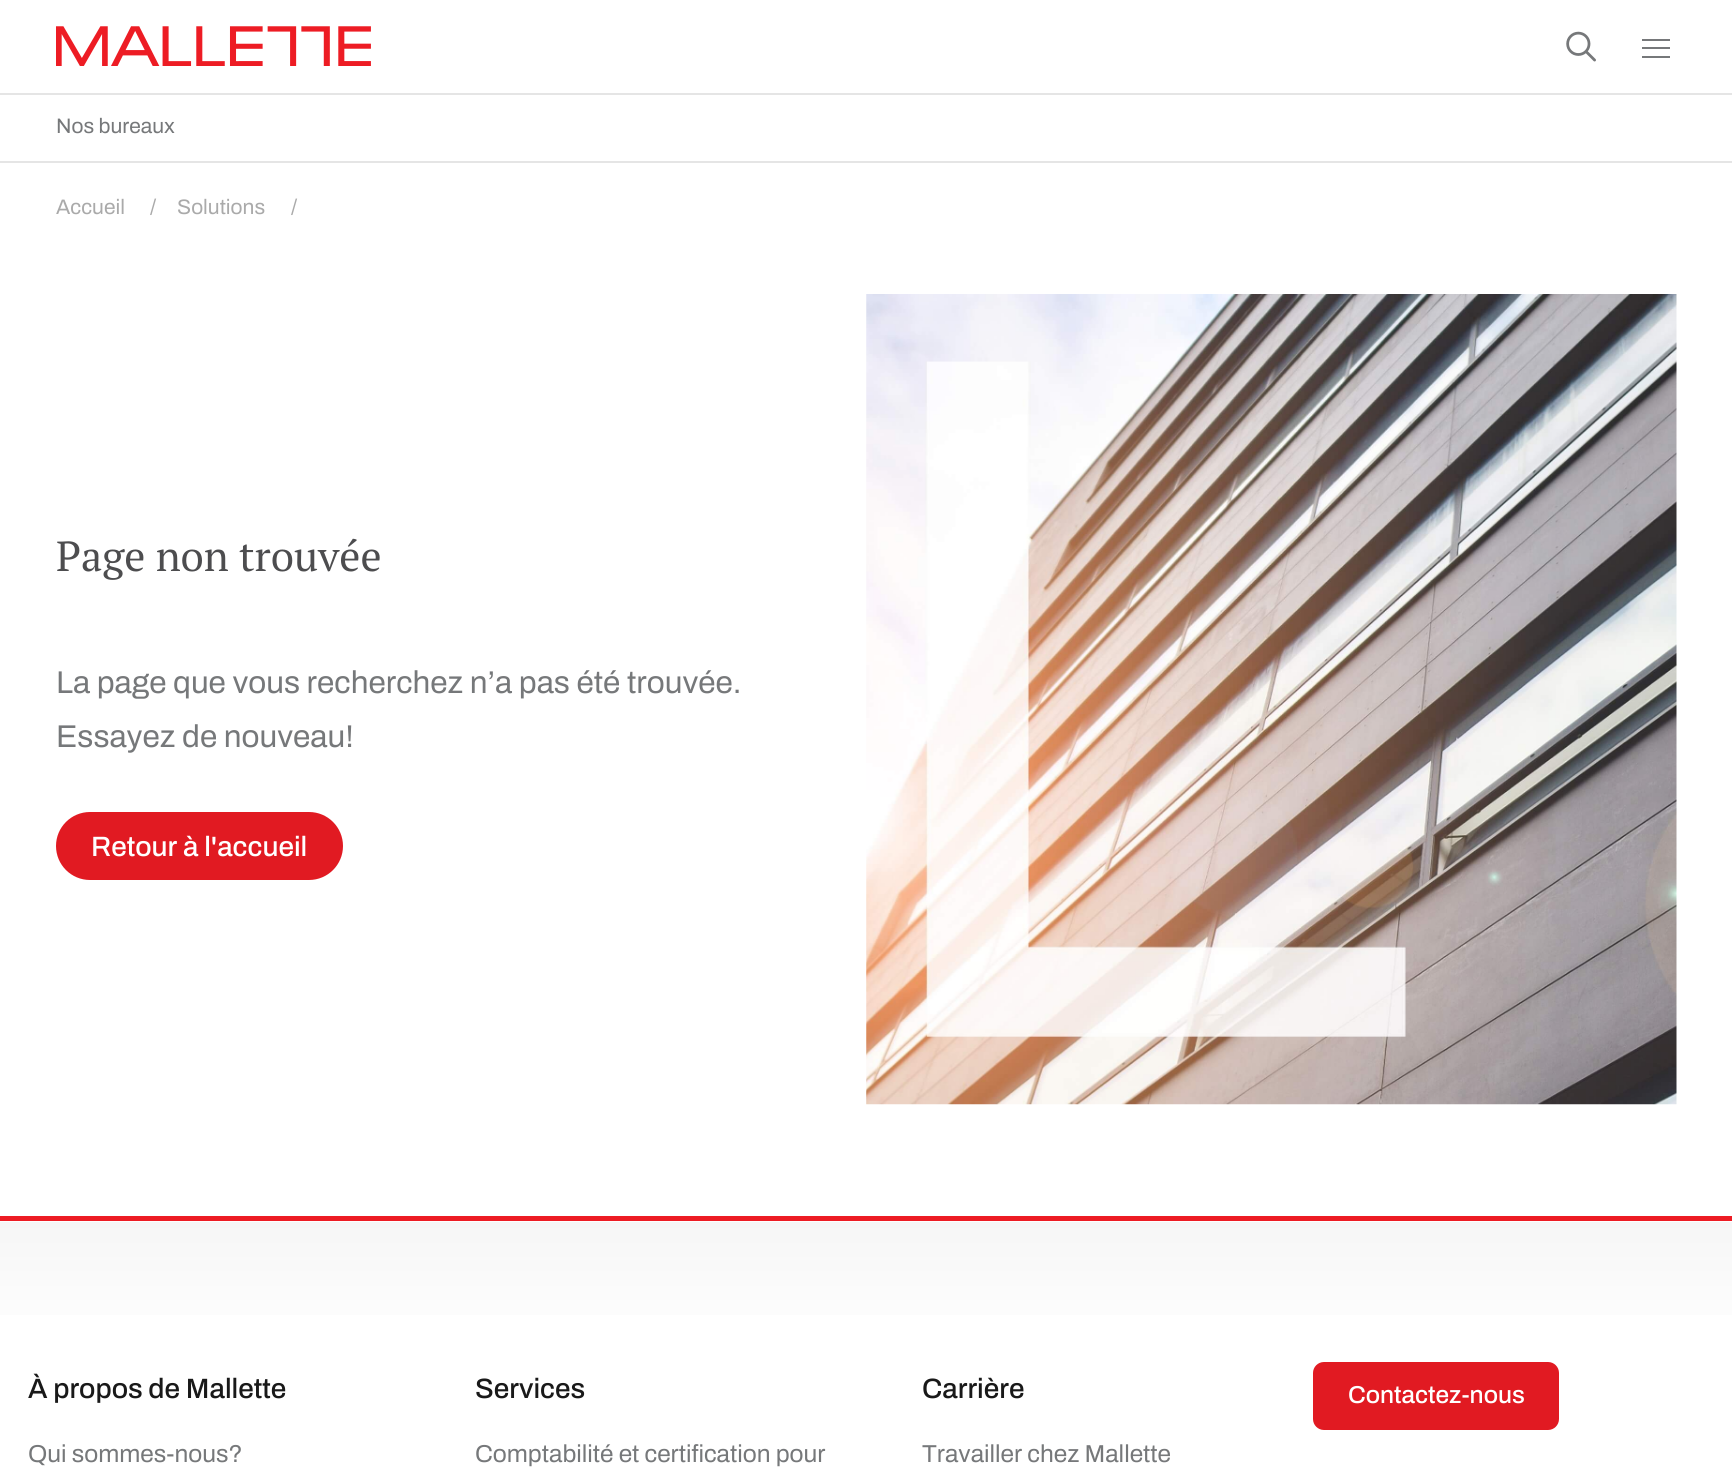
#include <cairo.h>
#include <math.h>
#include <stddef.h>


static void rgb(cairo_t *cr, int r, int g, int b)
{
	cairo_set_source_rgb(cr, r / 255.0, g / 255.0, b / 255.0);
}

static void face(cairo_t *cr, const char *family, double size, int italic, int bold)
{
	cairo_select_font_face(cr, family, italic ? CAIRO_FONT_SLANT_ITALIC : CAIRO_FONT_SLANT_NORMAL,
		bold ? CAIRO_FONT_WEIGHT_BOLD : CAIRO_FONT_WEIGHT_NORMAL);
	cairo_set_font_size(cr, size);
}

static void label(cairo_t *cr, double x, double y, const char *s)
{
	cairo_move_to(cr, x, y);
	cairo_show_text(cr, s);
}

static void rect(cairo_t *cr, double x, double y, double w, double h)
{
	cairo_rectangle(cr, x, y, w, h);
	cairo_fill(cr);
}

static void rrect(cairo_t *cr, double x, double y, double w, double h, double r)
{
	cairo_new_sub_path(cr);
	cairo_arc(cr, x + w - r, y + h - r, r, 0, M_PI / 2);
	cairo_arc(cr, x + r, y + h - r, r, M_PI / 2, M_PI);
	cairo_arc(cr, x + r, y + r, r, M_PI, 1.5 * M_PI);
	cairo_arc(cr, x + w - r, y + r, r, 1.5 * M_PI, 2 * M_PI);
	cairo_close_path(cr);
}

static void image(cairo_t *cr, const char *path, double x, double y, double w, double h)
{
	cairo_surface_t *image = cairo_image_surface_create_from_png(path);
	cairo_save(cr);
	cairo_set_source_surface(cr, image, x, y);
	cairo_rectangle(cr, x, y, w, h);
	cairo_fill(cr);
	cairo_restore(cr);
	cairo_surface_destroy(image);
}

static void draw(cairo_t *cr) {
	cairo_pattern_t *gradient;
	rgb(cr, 255, 255, 255);
	cairo_paint(cr);
	rgb(cr, 229, 229, 229);
	rect(cr, 0, 161, 1732, 2);
	image(cr, "image0.png", 56, 26, 315, 40);
	image(cr, "image1.png", 1566, 31, 30, 31);
	rgb(cr, 118, 120, 122);
	rect(cr, 1642, 39, 28, 2);
	rect(cr, 1642, 47, 28, 2);
	rect(cr, 1642, 56, 28, 2);
	rgb(cr, 229, 229, 229);
	rect(cr, 0, 93, 1732, 2);
	face(cr, "Archivo", 21, 0, 0);
	rgb(cr, 118, 120, 122);
	label(cr, 56, 133, "Nos bureaux");
	rgb(cr, 170, 170, 170);
	label(cr, 56, 214, "Accueil");
	label(cr, 150, 214, "/");
	label(cr, 177, 214, "Solutions");
	label(cr, 291, 214, "/");
	face(cr, "PT Serif", 42, 0, 0);
	rgb(cr, 77, 77, 79);
	label(cr, 56, 571, "Page non trouvée");
	face(cr, "Archivo", 31.5, 0, 0);
	rgb(cr, 118, 120, 122);
	label(cr, 56, 693, "La page que vous recherchez n’a pas été trouvée.");
	label(cr, 56, 747, "Essayez de nouveau!");
	rgb(cr, 225, 26, 34);
	rrect(cr, 56, 812, 287, 68, 34);
	cairo_fill(cr);
	face(cr, "Archivo Medium", 28, 0, 0);
	rgb(cr, 255, 255, 255);
	label(cr, 91, 856, "Retour à l'accueil");
	image(cr, "image2.png", 866, 294, 811, 811);
	gradient = cairo_pattern_create_linear(866, 1222, 866, 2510);
	cairo_pattern_add_color_stop_rgba(gradient, 0, 0.965, 0.965, 0.965, 1);
	cairo_pattern_add_color_stop_rgba(gradient, 0.1, 1, 1, 1, 1);
	cairo_set_source(cr, gradient);
	cairo_pattern_destroy(gradient);
	rect(cr, 0, 1222, 1732, 93);
	rgb(cr, 237, 28, 36);
	rect(cr, 0, 1216, 1732, 5);
	rgb(cr, 25, 25, 25);
	label(cr, 28, 1398, "À propos de Mallette");
	face(cr, "Archivo", 24.5, 0, 0);
	rgb(cr, 118, 120, 122);
	label(cr, 28, 1462, "Qui sommes-nous?");
	face(cr, "Archivo Medium", 28, 0, 0);
	rgb(cr, 25, 25, 25);
	label(cr, 475, 1398, "Services");
	face(cr, "Archivo", 24.5, 0, 0);
	rgb(cr, 118, 120, 122);
	label(cr, 475, 1462, "Comptabilité et certification pour");
	face(cr, "Archivo Medium", 28, 0, 0);
	rgb(cr, 25, 25, 25);
	label(cr, 922, 1398, "Carrière");
	face(cr, "Archivo", 24.5, 0, 0);
	rgb(cr, 118, 120, 122);
	label(cr, 922, 1462, "Travailler chez Mallette");
	rgb(cr, 225, 26, 34);
	rrect(cr, 1313, 1362, 246, 68, 11);
	cairo_fill(cr);
	face(cr, "Archivo Medium", 24.5, 0, 0);
	rgb(cr, 255, 255, 255);
	label(cr, 1348, 1403, "Contactez-nous");
}

int main(void) {
	cairo_surface_t *surface = cairo_image_surface_create(CAIRO_FORMAT_RGB24, 1732, 1477);
	cairo_t *cr = cairo_create(surface);
	cairo_font_options_t *options = cairo_font_options_create();
	cairo_font_options_set_hint_metrics(options, CAIRO_HINT_METRICS_OFF);
	cairo_font_options_set_hint_style(options, CAIRO_HINT_STYLE_NONE);
	cairo_set_font_options(cr, options);
	cairo_set_miter_limit(cr, 4);
	draw(cr);
	cairo_surface_write_to_png(surface, "render.png");
	cairo_font_options_destroy(options);
	cairo_destroy(cr);
	cairo_surface_destroy(surface);
	return 0;
}
